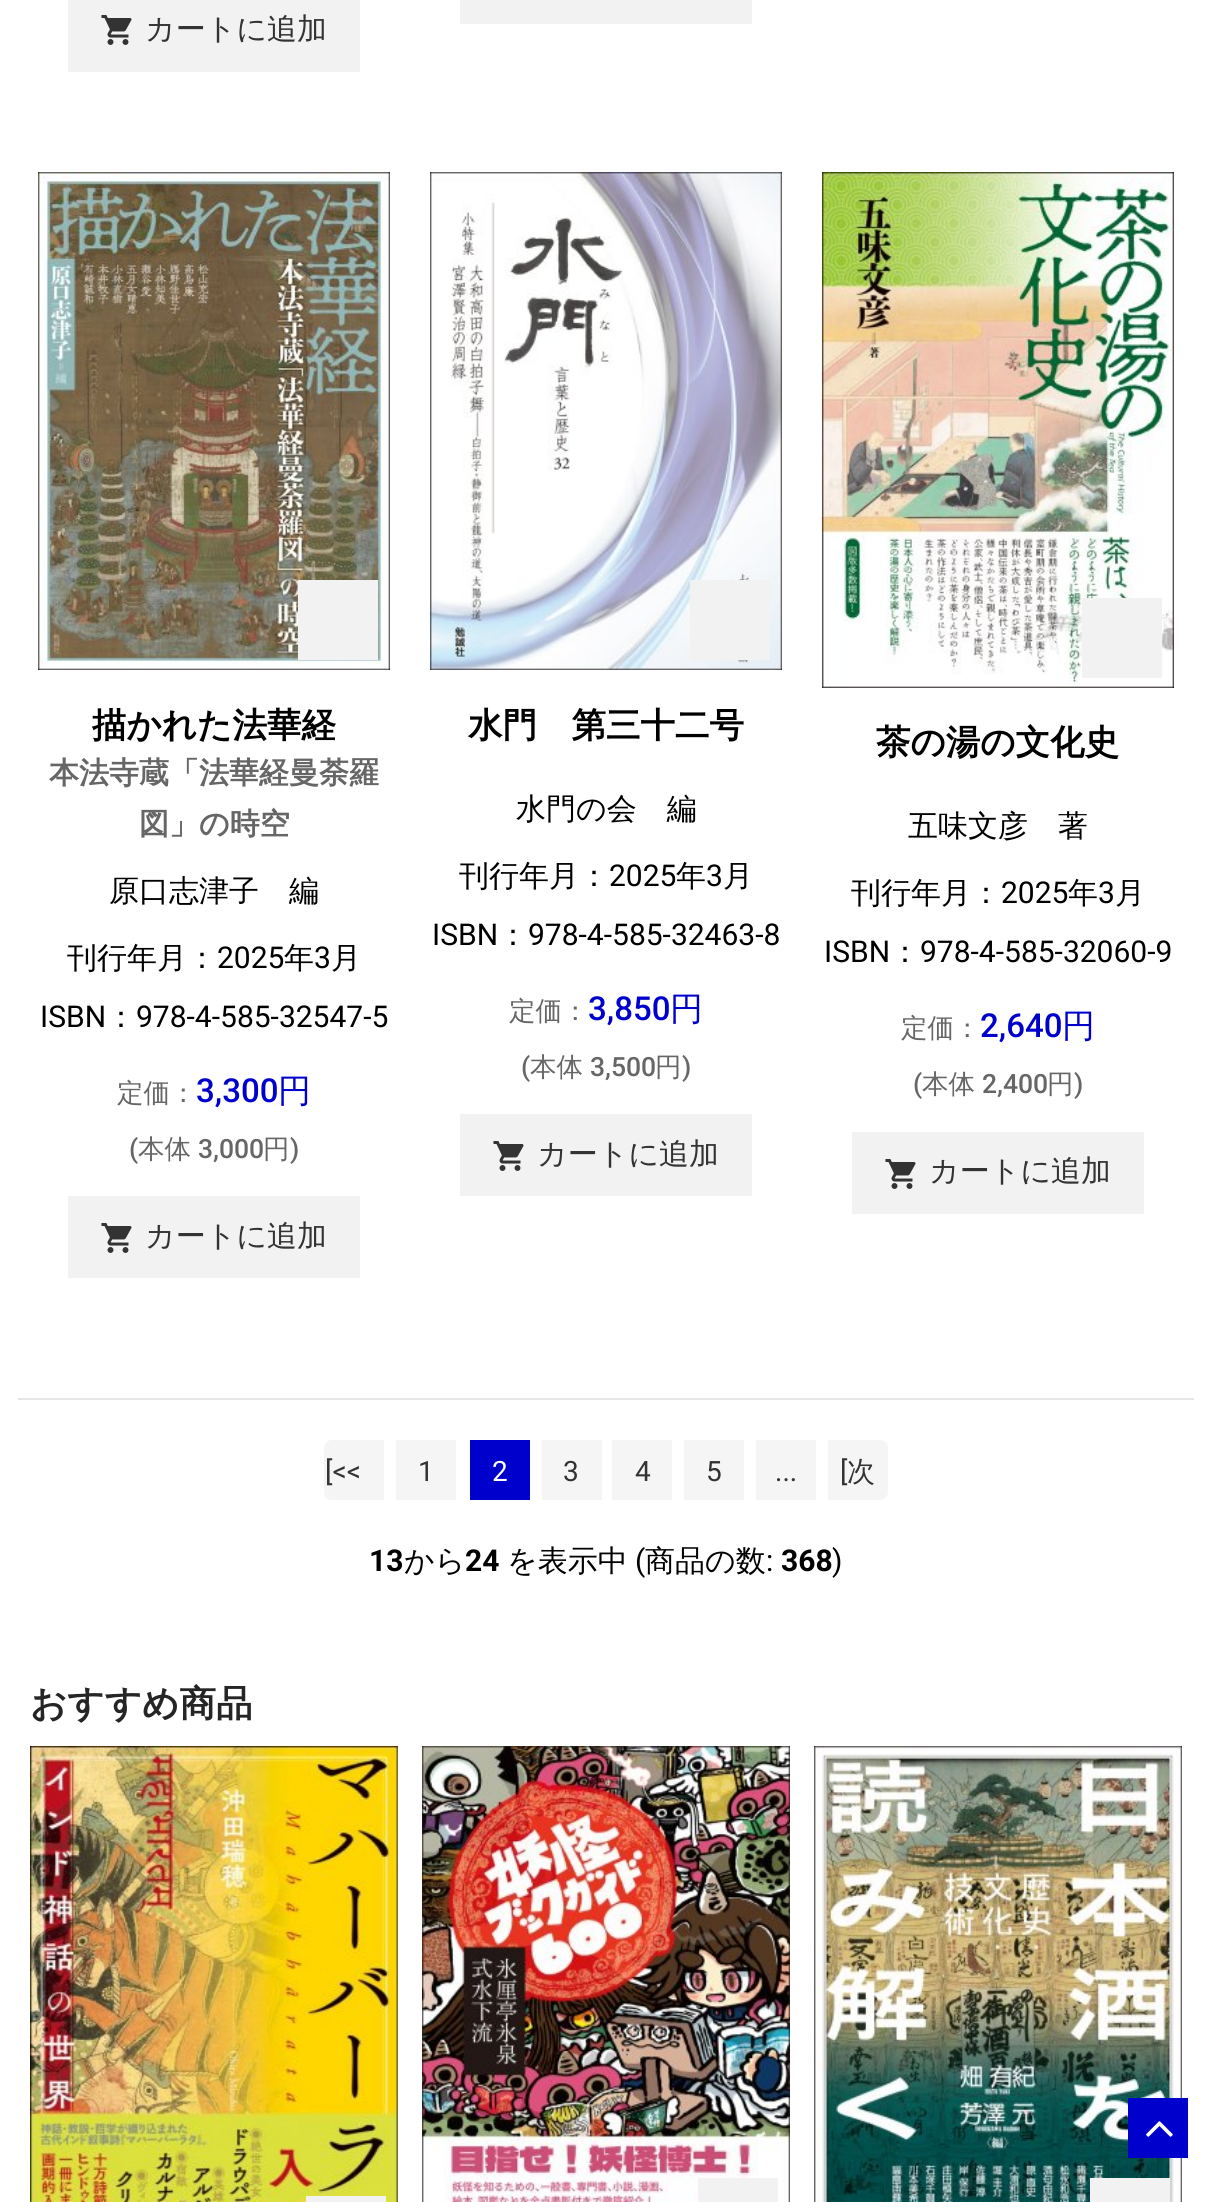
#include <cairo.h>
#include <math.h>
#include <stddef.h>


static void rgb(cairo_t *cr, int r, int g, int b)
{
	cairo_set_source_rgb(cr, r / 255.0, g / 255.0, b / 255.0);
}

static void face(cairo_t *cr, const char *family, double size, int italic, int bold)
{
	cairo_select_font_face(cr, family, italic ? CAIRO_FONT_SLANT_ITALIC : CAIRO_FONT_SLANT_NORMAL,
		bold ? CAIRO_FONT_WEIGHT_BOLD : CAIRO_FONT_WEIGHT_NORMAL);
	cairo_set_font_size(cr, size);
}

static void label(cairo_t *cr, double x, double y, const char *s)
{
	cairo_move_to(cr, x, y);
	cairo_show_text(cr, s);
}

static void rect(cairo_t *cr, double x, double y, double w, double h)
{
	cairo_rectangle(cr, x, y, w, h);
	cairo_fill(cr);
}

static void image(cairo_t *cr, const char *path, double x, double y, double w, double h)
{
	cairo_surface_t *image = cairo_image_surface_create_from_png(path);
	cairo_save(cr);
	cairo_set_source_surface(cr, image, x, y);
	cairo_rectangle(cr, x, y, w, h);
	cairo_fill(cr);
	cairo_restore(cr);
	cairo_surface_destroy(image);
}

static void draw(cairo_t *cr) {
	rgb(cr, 255, 255, 255);
	cairo_paint(cr);
	rgb(cr, 242, 242, 242);
	rect(cr, 68, 0, 292, 72);
	image(cr, "image0.png", 101, 15, 31, 30);
	face(cr, "WenQuanYi Zen Hei Medium", 30, 0, 0);
	rgb(cr, 51, 51, 51);
	label(cr, 145, 39, "カートに追加");
	rgb(cr, 242, 242, 242);
	rect(cr, 460, 0, 292, 24);
	image(cr, "image1.png", 38, 172, 352, 498);
	rect(cr, 298, 580, 80, 80);
	face(cr, "WenQuanYi Zen Hei", 34.5, 0, 1);
	rgb(cr, 0, 0, 0);
	label(cr, 92, 737, "描かれた法華経");
	face(cr, "WenQuanYi Zen Hei", 30, 0, 1);
	rgb(cr, 102, 102, 102);
	label(cr, 49, 783, "本法寺蔵「法華経曼荼羅");
	label(cr, 139, 834, "図」の時空");
	face(cr, "WenQuanYi Zen Hei Medium", 30, 0, 0);
	rgb(cr, 0, 0, 0);
	label(cr, 109, 901, "原口志津子　編");
	label(cr, 67, 968, "刊行年月：");
	face(cr, "Roboto", 30, 0, 0);
	label(cr, 217, 968, "2025");
	face(cr, "WenQuanYi Zen Hei Medium", 30, 0, 0);
	label(cr, 284, 968, "年");
	face(cr, "Roboto", 30, 0, 0);
	label(cr, 314, 968, "3");
	face(cr, "WenQuanYi Zen Hei Medium", 30, 0, 0);
	label(cr, 331, 968, "月");
	face(cr, "Roboto", 30, 0, 0);
	label(cr, 40, 1027, "ISBN");
	face(cr, "WenQuanYi Zen Hei Medium", 30, 0, 0);
	label(cr, 106, 1027, "：");
	face(cr, "Roboto", 30, 0, 0);
	label(cr, 136, 1027, "978-4-585-32547-5");
	face(cr, "WenQuanYi Zen Hei Medium", 26.5, 0, 0);
	rgb(cr, 102, 102, 102);
	label(cr, 117, 1102, "定価：");
	face(cr, "Roboto Medium", 33, 0, 0);
	rgb(cr, 0, 0, 204);
	label(cr, 196, 1102, "3,300");
	face(cr, "WenQuanYi Zen Hei Medium", 33, 0, 0);
	label(cr, 278, 1102, "円");
	face(cr, "Roboto Medium", 26.5, 0, 0);
	rgb(cr, 102, 102, 102);
	label(cr, 129, 1158, "(");
	face(cr, "WenQuanYi Zen Hei Medium", 26.5, 0, 0);
	label(cr, 138, 1158, "本体");
	face(cr, "Roboto Medium", 26.5, 0, 0);
	label(cr, 198, 1158, "3,000");
	face(cr, "WenQuanYi Zen Hei Medium", 26.5, 0, 0);
	label(cr, 263, 1158, "円");
	face(cr, "Roboto Medium", 26.5, 0, 0);
	label(cr, 290, 1158, ")");
	rgb(cr, 242, 242, 242);
	rect(cr, 68, 1196, 292, 82);
	image(cr, "image0.png", 101, 1223, 31, 30);
	face(cr, "WenQuanYi Zen Hei Medium", 30, 0, 0);
	rgb(cr, 51, 51, 51);
	label(cr, 145, 1246, "カートに追加");
	image(cr, "image2.png", 430, 172, 352, 498);
	rgb(cr, 242, 242, 242);
	rect(cr, 690, 580, 80, 80);
	face(cr, "WenQuanYi Zen Hei", 34.5, 0, 1);
	rgb(cr, 0, 0, 0);
	label(cr, 468, 737, "水門　第三十二号");
	face(cr, "WenQuanYi Zen Hei Medium", 30, 0, 0);
	label(cr, 516, 819, "水門の会　編");
	label(cr, 459, 886, "刊行年月：");
	face(cr, "Roboto", 30, 0, 0);
	label(cr, 609, 886, "2025");
	face(cr, "WenQuanYi Zen Hei Medium", 30, 0, 0);
	label(cr, 676, 886, "年");
	face(cr, "Roboto", 30, 0, 0);
	label(cr, 706, 886, "3");
	face(cr, "WenQuanYi Zen Hei Medium", 30, 0, 0);
	label(cr, 723, 886, "月");
	face(cr, "Roboto", 30, 0, 0);
	label(cr, 432, 945, "ISBN");
	face(cr, "WenQuanYi Zen Hei Medium", 30, 0, 0);
	label(cr, 498, 945, "：");
	face(cr, "Roboto", 30, 0, 0);
	label(cr, 528, 945, "978-4-585-32463-8");
	face(cr, "WenQuanYi Zen Hei Medium", 26.5, 0, 0);
	rgb(cr, 102, 102, 102);
	label(cr, 509, 1020, "定価：");
	face(cr, "Roboto Medium", 33, 0, 0);
	rgb(cr, 0, 0, 204);
	label(cr, 588, 1020, "3,850");
	face(cr, "WenQuanYi Zen Hei Medium", 33, 0, 0);
	label(cr, 670, 1020, "円");
	face(cr, "Roboto Medium", 26.5, 0, 0);
	rgb(cr, 102, 102, 102);
	label(cr, 521, 1076, "(");
	face(cr, "WenQuanYi Zen Hei Medium", 26.5, 0, 0);
	label(cr, 530, 1076, "本体");
	face(cr, "Roboto Medium", 26.5, 0, 0);
	label(cr, 590, 1076, "3,500");
	face(cr, "WenQuanYi Zen Hei Medium", 26.5, 0, 0);
	label(cr, 655, 1076, "円");
	face(cr, "Roboto Medium", 26.5, 0, 0);
	label(cr, 682, 1076, ")");
	rgb(cr, 242, 242, 242);
	rect(cr, 460, 1114, 292, 82);
	image(cr, "image0.png", 493, 1141, 31, 30);
	face(cr, "WenQuanYi Zen Hei Medium", 30, 0, 0);
	rgb(cr, 51, 51, 51);
	label(cr, 537, 1164, "カートに追加");
	image(cr, "image3.png", 822, 172, 352, 516);
	rgb(cr, 242, 242, 242);
	rect(cr, 1082, 598, 80, 80);
	face(cr, "WenQuanYi Zen Hei", 34.5, 0, 1);
	rgb(cr, 0, 0, 0);
	label(cr, 876, 754, "茶の湯の文化史");
	face(cr, "WenQuanYi Zen Hei Medium", 30, 0, 0);
	label(cr, 908, 836, "五味文彦　著");
	label(cr, 851, 903, "刊行年月：");
	face(cr, "Roboto", 30, 0, 0);
	label(cr, 1001, 903, "2025");
	face(cr, "WenQuanYi Zen Hei Medium", 30, 0, 0);
	label(cr, 1068, 903, "年");
	face(cr, "Roboto", 30, 0, 0);
	label(cr, 1098, 903, "3");
	face(cr, "WenQuanYi Zen Hei Medium", 30, 0, 0);
	label(cr, 1115, 903, "月");
	face(cr, "Roboto", 30, 0, 0);
	label(cr, 824, 962, "ISBN");
	face(cr, "WenQuanYi Zen Hei Medium", 30, 0, 0);
	label(cr, 890, 962, "：");
	face(cr, "Roboto", 30, 0, 0);
	label(cr, 920, 962, "978-4-585-32060-9");
	face(cr, "WenQuanYi Zen Hei Medium", 26.5, 0, 0);
	rgb(cr, 102, 102, 102);
	label(cr, 901, 1037, "定価：");
	face(cr, "Roboto Medium", 33, 0, 0);
	rgb(cr, 0, 0, 204);
	label(cr, 980, 1037, "2,640");
	face(cr, "WenQuanYi Zen Hei Medium", 33, 0, 0);
	label(cr, 1062, 1037, "円");
	face(cr, "Roboto Medium", 26.5, 0, 0);
	rgb(cr, 102, 102, 102);
	label(cr, 913, 1093, "(");
	face(cr, "WenQuanYi Zen Hei Medium", 26.5, 0, 0);
	label(cr, 922, 1093, "本体");
	face(cr, "Roboto Medium", 26.5, 0, 0);
	label(cr, 982, 1093, "2,400");
	face(cr, "WenQuanYi Zen Hei Medium", 26.5, 0, 0);
	label(cr, 1047, 1093, "円");
	face(cr, "Roboto Medium", 26.5, 0, 0);
	label(cr, 1074, 1093, ")");
	rgb(cr, 242, 242, 242);
	rect(cr, 852, 1132, 292, 82);
	image(cr, "image0.png", 885, 1159, 31, 30);
	face(cr, "WenQuanYi Zen Hei Medium", 30, 0, 0);
	rgb(cr, 51, 51, 51);
	label(cr, 929, 1181, "カートに追加");
	rgb(cr, 229, 229, 229);
	rect(cr, 18, 1398, 1176, 2);
	rgb(cr, 245, 245, 245);
	cairo_new_path(cr);
	cairo_move_to(cr, 332, 1440);
	cairo_line_to(cr, 384, 1440);
	cairo_line_to(cr, 384, 1500);
	cairo_line_to(cr, 332, 1500);
	cairo_curve_to(cr, 327.5, 1500, 324, 1496.5, 324, 1492);
	cairo_line_to(cr, 324, 1448);
	cairo_curve_to(cr, 324, 1443.5, 327.5, 1440, 332, 1440);
	cairo_close_path(cr);
	cairo_fill(cr);
	face(cr, "Roboto", 28, 0, 0);
	rgb(cr, 51, 51, 51);
	label(cr, 325, 1481, "[<<");
	rgb(cr, 245, 245, 245);
	rect(cr, 396, 1440, 60, 60);
	rgb(cr, 51, 51, 51);
	label(cr, 418, 1481, "1");
	rgb(cr, 0, 0, 204);
	rect(cr, 470, 1440, 60, 60);
	rgb(cr, 255, 255, 255);
	label(cr, 492, 1481, "2");
	rgb(cr, 245, 245, 245);
	rect(cr, 542, 1440, 60, 60);
	rgb(cr, 51, 51, 51);
	label(cr, 563, 1481, "3");
	rgb(cr, 245, 245, 245);
	rect(cr, 612, 1440, 60, 60);
	rgb(cr, 51, 51, 51);
	label(cr, 635, 1481, "4");
	rgb(cr, 245, 245, 245);
	rect(cr, 684, 1440, 60, 60);
	rgb(cr, 51, 51, 51);
	label(cr, 706, 1481, "5");
	rgb(cr, 245, 245, 245);
	rect(cr, 756, 1440, 60, 60);
	rgb(cr, 51, 51, 51);
	label(cr, 775, 1481, "...");
	rgb(cr, 245, 245, 245);
	cairo_new_path(cr);
	cairo_move_to(cr, 828, 1440);
	cairo_line_to(cr, 880, 1440);
	cairo_curve_to(cr, 884.5, 1440, 888, 1443.5, 888, 1448);
	cairo_line_to(cr, 888, 1492);
	cairo_curve_to(cr, 888, 1496.5, 884.5, 1500, 880, 1500);
	cairo_line_to(cr, 828, 1500);
	cairo_close_path(cr);
	cairo_fill(cr);
	rgb(cr, 51, 51, 51);
	label(cr, 840, 1481, "[");
	face(cr, "WenQuanYi Zen Hei Medium", 28, 0, 0);
	label(cr, 847, 1481, "次");
	face(cr, "Roboto", 30, 0, 1);
	rgb(cr, 0, 0, 0);
	label(cr, 369, 1571, "13");
	face(cr, "WenQuanYi Zen Hei Medium", 30, 0, 0);
	label(cr, 404, 1571, "から");
	face(cr, "Roboto", 30, 0, 1);
	label(cr, 465, 1571, "24");
	face(cr, "WenQuanYi Zen Hei Medium", 30, 0, 0);
	label(cr, 507, 1571, "を表示中");
	face(cr, "Roboto", 30, 0, 0);
	label(cr, 635, 1571, "(");
	face(cr, "WenQuanYi Zen Hei Medium", 30, 0, 0);
	label(cr, 645, 1571, "商品の数");
	face(cr, "Roboto", 30, 0, 0);
	label(cr, 766, 1571, ":");
	face(cr, "Roboto", 30, 0, 1);
	label(cr, 781, 1571, "368");
	face(cr, "Roboto", 30, 0, 0);
	label(cr, 832, 1571, ")");
	face(cr, "WenQuanYi Zen Hei", 36.5, 0, 1);
	rgb(cr, 37, 37, 37);
	label(cr, 30, 1716, "おすすめ商品");
	image(cr, "image4.png", 30, 1746, 368, 456);
	rgb(cr, 242, 242, 242);
	rect(cr, 306, 2196, 80, 6);
	image(cr, "image5.png", 422, 1746, 368, 456);
	rect(cr, 698, 2178, 80, 24);
	image(cr, "image6.png", 814, 1746, 368, 456);
	rect(cr, 1090, 2178, 80, 24);
	rgb(cr, 0, 0, 204);
	rect(cr, 1128, 2098, 60, 60);
	image(cr, "image7.png", 1146, 2121, 27, 16);
}

int main(void) {
	cairo_surface_t *surface = cairo_image_surface_create(CAIRO_FORMAT_RGB24, 1211, 2202);
	cairo_t *cr = cairo_create(surface);
	cairo_font_options_t *options = cairo_font_options_create();
	cairo_font_options_set_hint_metrics(options, CAIRO_HINT_METRICS_OFF);
	cairo_font_options_set_hint_style(options, CAIRO_HINT_STYLE_NONE);
	cairo_set_font_options(cr, options);
	cairo_set_miter_limit(cr, 4);
	draw(cr);
	cairo_surface_write_to_png(surface, "render.png");
	cairo_font_options_destroy(options);
	cairo_destroy(cr);
	cairo_surface_destroy(surface);
	return 0;
}
